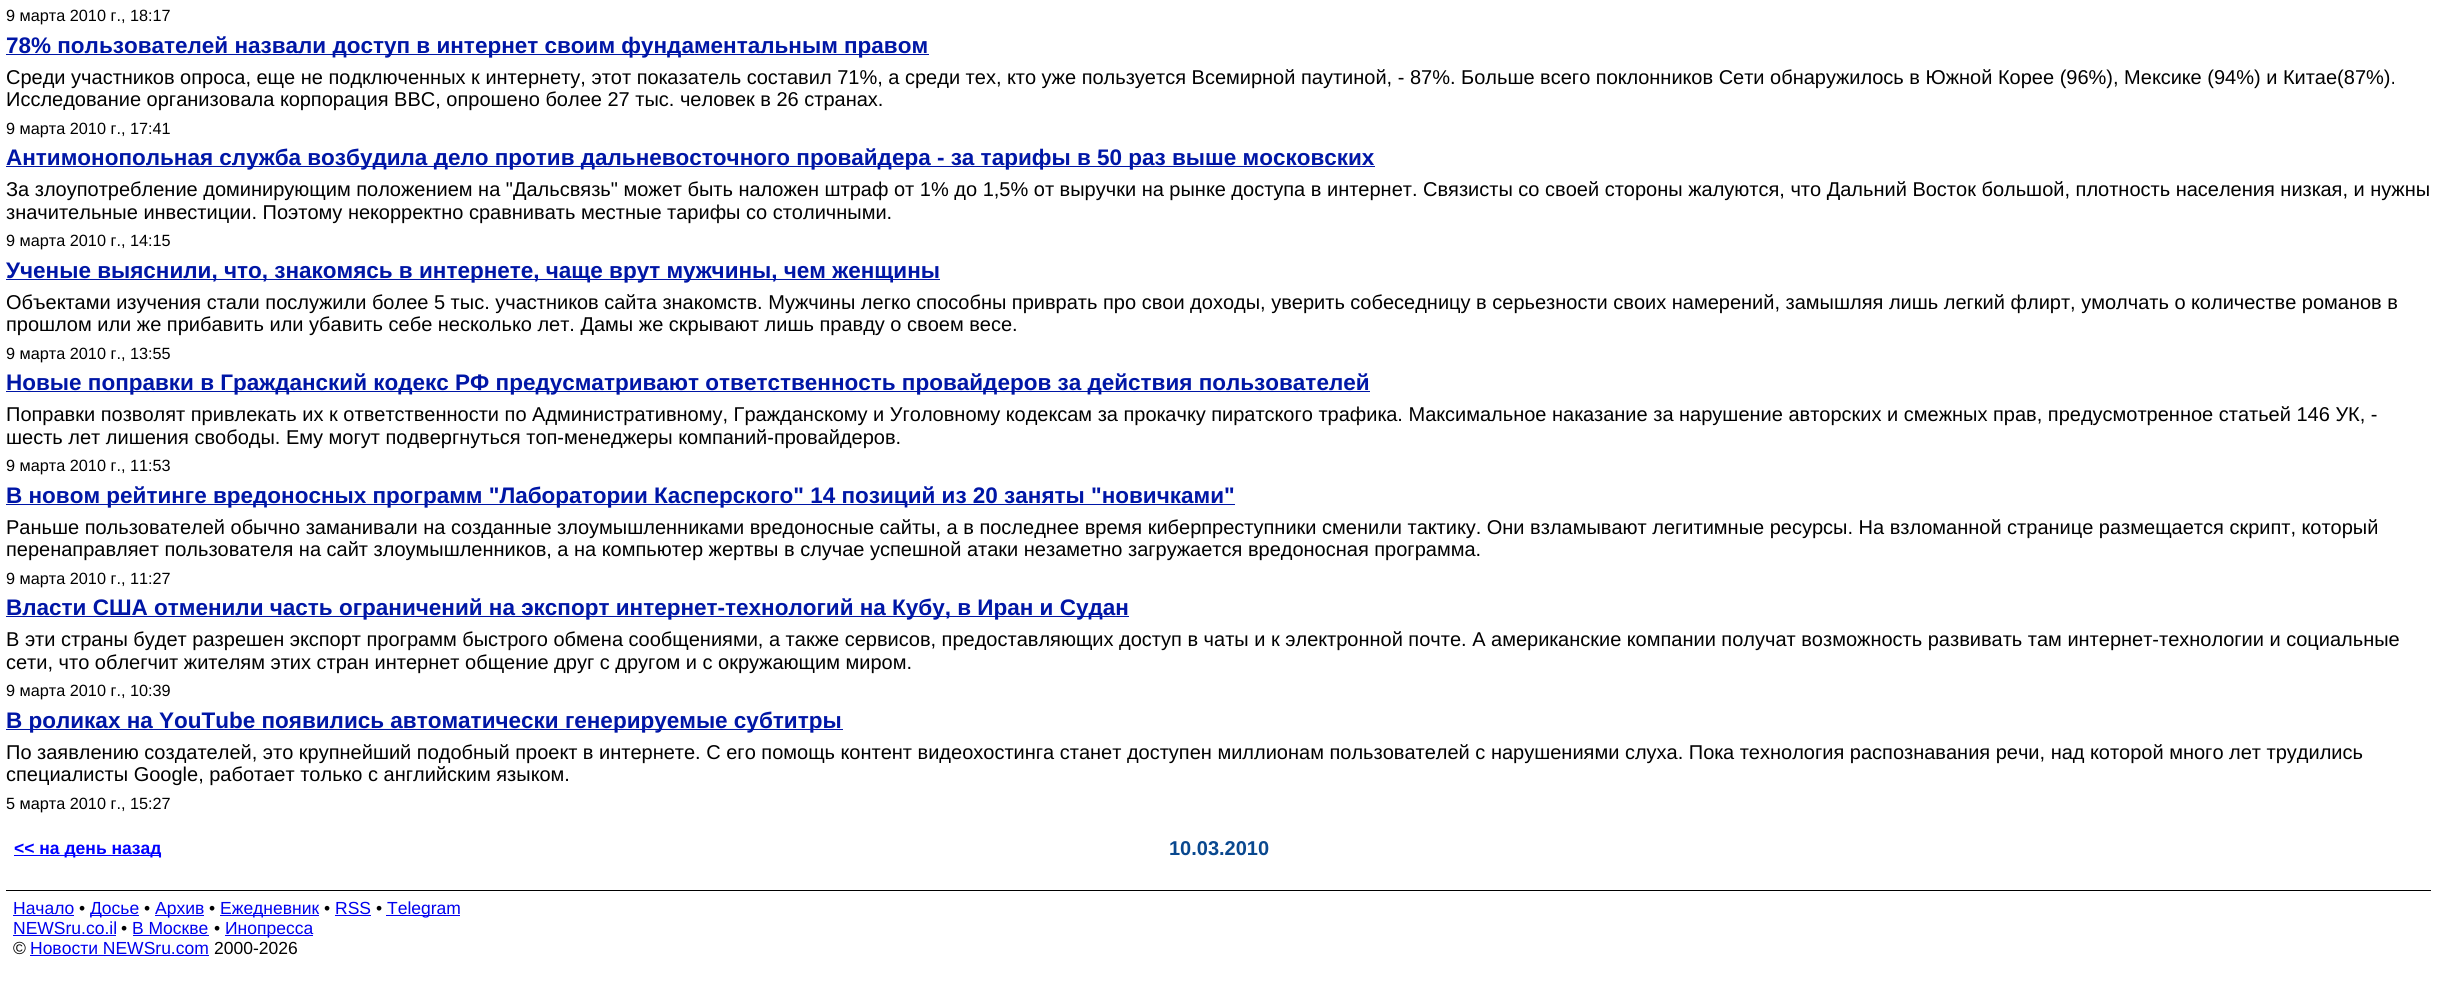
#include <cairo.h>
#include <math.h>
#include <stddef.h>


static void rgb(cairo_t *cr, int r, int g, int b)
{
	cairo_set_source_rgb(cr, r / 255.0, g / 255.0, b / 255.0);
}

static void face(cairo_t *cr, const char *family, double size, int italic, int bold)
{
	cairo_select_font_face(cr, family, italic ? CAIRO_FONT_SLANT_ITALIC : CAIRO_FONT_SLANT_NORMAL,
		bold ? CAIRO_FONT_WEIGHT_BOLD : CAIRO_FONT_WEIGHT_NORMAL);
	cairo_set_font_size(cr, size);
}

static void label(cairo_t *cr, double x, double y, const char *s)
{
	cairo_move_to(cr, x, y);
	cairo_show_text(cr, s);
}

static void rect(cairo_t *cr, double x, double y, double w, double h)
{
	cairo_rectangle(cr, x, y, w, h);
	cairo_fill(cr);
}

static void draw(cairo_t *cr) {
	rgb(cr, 255, 255, 255);
	cairo_paint(cr);
	face(cr, "Liberation Sans", 16.25, 0, 0);
	rgb(cr, 0, 0, 0);
	label(cr, 6, 21, "9 марта 2010 г., 18:17");
	rgb(cr, 0, 22, 166);
	rect(cr, 6, 54, 923, 1);
	face(cr, "Liberation Sans", 22.5, 0, 1);
	label(cr, 6, 53, "78% пользователей назвали доступ в интернет своим фундаментальным правом");
	face(cr, "Liberation Sans", 20, 0, 0);
	rgb(cr, 0, 0, 0);
	label(cr, 6, 84, "Среди участников опроса, еще не подключенных к интернету, этот показатель составил 71%, а среди тех, кто уже пользуется Всемирной паутиной, - 87%. Больше всего поклонников Сети обнаружилось в Южной Корее (96%), Мексике (94%) и Китае(87%).");
	label(cr, 6, 106, "Исследование организовала корпорация BBC, опрошено более 27 тыс. человек в 26 странах.");
	face(cr, "Liberation Sans", 16.25, 0, 0);
	label(cr, 6, 134, "9 марта 2010 г., 17:41");
	rgb(cr, 0, 22, 166);
	rect(cr, 6, 166, 1369, 1);
	face(cr, "Liberation Sans", 22.5, 0, 1);
	label(cr, 6, 165, "Антимонопольная служба возбудила дело против дальневосточного провайдера - за тарифы в 50 раз выше московских");
	face(cr, "Liberation Sans", 20, 0, 0);
	rgb(cr, 0, 0, 0);
	label(cr, 6, 196, "За злоупотребление доминирующим положением на \"Дальсвязь\" может быть наложен штраф от 1% до 1,5% от выручки на рынке доступа в интернет. Связисты со своей стороны жалуются, что Дальний Восток большой, плотность населения низкая, и нужны");
	label(cr, 6, 219, "значительные инвестиции. Поэтому некорректно сравнивать местные тарифы со столичными.");
	face(cr, "Liberation Sans", 16.25, 0, 0);
	label(cr, 6, 246, "9 марта 2010 г., 14:15");
	rgb(cr, 0, 22, 166);
	rect(cr, 6, 279, 934, 1);
	face(cr, "Liberation Sans", 22.5, 0, 1);
	label(cr, 6, 278, "Ученые выяснили, что, знакомясь в интернете, чаще врут мужчины, чем женщины");
	face(cr, "Liberation Sans", 20, 0, 0);
	rgb(cr, 0, 0, 0);
	label(cr, 6, 309, "Объектами изучения стали послужили более 5 тыс. участников сайта знакомств. Мужчины легко способны приврать про свои доходы, уверить собеседницу в серьезности своих намерений, замышляя лишь легкий флирт, умолчать о количестве романов в");
	label(cr, 6, 331, "прошлом или же прибавить или убавить себе несколько лет. Дамы же скрывают лишь правду о своем весе.");
	face(cr, "Liberation Sans", 16.25, 0, 0);
	label(cr, 6, 359, "9 марта 2010 г., 13:55");
	rgb(cr, 0, 22, 166);
	rect(cr, 6, 391, 1364, 1);
	face(cr, "Liberation Sans", 22.5, 0, 1);
	label(cr, 6, 390, "Новые поправки в Гражданский кодекс РФ предусматривают ответственность провайдеров за действия пользователей");
	face(cr, "Liberation Sans", 20, 0, 0);
	rgb(cr, 0, 0, 0);
	label(cr, 6, 421, "Поправки позволят привлекать их к ответственности по Административному, Гражданскому и Уголовному кодексам за прокачку пиратского трафика. Максимальное наказание за нарушение авторских и смежных прав, предусмотренное статьей 146 УК, -");
	label(cr, 6, 444, "шесть лет лишения свободы. Ему могут подвергнуться топ-менеджеры компаний-провайдеров.");
	face(cr, "Liberation Sans", 16.25, 0, 0);
	label(cr, 6, 471, "9 марта 2010 г., 11:53");
	rgb(cr, 0, 22, 166);
	rect(cr, 6, 504, 1229, 1);
	face(cr, "Liberation Sans", 22.5, 0, 1);
	label(cr, 6, 503, "В новом рейтинге вредоносных программ \"Лаборатории Касперского\" 14 позиций из 20 заняты \"новичками\"");
	face(cr, "Liberation Sans", 20, 0, 0);
	rgb(cr, 0, 0, 0);
	label(cr, 6, 534, "Раньше пользователей обычно заманивали на созданные злоумышленниками вредоносные сайты, а в последнее время киберпреступники сменили тактику. Они взламывают легитимные ресурсы. На взломанной странице размещается скрипт, который");
	label(cr, 6, 556, "перенаправляет пользователя на сайт злоумышленников, а на компьютер жертвы в случае успешной атаки незаметно загружается вредоносная программа.");
	face(cr, "Liberation Sans", 16.25, 0, 0);
	label(cr, 6, 584, "9 марта 2010 г., 11:27");
	rgb(cr, 0, 22, 166);
	rect(cr, 6, 616, 1123, 1);
	face(cr, "Liberation Sans", 22.5, 0, 1);
	label(cr, 6, 615, "Власти США отменили часть ограничений на экспорт интернет-технологий на Кубу, в Иран и Судан");
	face(cr, "Liberation Sans", 20, 0, 0);
	rgb(cr, 0, 0, 0);
	label(cr, 6, 646, "В эти страны будет разрешен экспорт программ быстрого обмена сообщениями, а также сервисов, предоставляющих доступ в чаты и к электронной почте. А американские компании получат возможность развивать там интернет-технологии и социальные");
	label(cr, 6, 669, "сети, что облегчит жителям этих стран интернет общение друг с другом и с окружающим миром.");
	face(cr, "Liberation Sans", 16.25, 0, 0);
	label(cr, 6, 696, "9 марта 2010 г., 10:39");
	rgb(cr, 0, 22, 166);
	rect(cr, 6, 729, 837, 1);
	face(cr, "Liberation Sans", 22.5, 0, 1);
	label(cr, 6, 728, "В роликах на YouTube появились автоматически генерируемые субтитры");
	face(cr, "Liberation Sans", 20, 0, 0);
	rgb(cr, 0, 0, 0);
	label(cr, 6, 759, "По заявлению создателей, это крупнейший подобный проект в интернете. С его помощь контент видеохостинга станет доступен миллионам пользователей с нарушениями слуха. Пока технология распознавания речи, над которой много лет трудились");
	label(cr, 6, 781, "специалисты Google, работает только с английским языком.");
	face(cr, "Liberation Sans", 16.25, 0, 0);
	label(cr, 6, 809, "5 марта 2010 г., 15:27");
	rgb(cr, 0, 0, 255);
	rect(cr, 14, 855, 147, 1);
	face(cr, "Liberation Sans", 17.5, 0, 1);
	label(cr, 14, 854, "<< на день назад");
	face(cr, "Liberation Sans", 20, 0, 1);
	rgb(cr, 9, 72, 143);
	label(cr, 1169, 855, "10.03.2010");
	rgb(cr, 0, 0, 0);
	rect(cr, 6, 890, 2425, 1);
	face(cr, "Liberation Sans", 17.5, 0, 0);
	rgb(cr, 0, 0, 238);
	label(cr, 13, 914, "Начало");
	rect(cr, 13, 915, 61, 1);
	rgb(cr, 0, 0, 0);
	label(cr, 79, 914, "•");
	rgb(cr, 0, 0, 238);
	rect(cr, 90, 915, 49, 1);
	label(cr, 90, 914, "Досье");
	rgb(cr, 0, 0, 0);
	label(cr, 144, 914, "•");
	rgb(cr, 0, 0, 238);
	rect(cr, 155, 915, 49, 1);
	label(cr, 155, 914, "Архив");
	rgb(cr, 0, 0, 0);
	label(cr, 209, 914, "•");
	rgb(cr, 0, 0, 238);
	rect(cr, 220, 915, 99, 1);
	label(cr, 220, 914, "Ежедневник");
	rgb(cr, 0, 0, 0);
	label(cr, 324, 914, "•");
	rgb(cr, 0, 0, 238);
	label(cr, 335, 914, "RSS");
	rect(cr, 335, 915, 36, 1);
	rgb(cr, 0, 0, 0);
	label(cr, 376, 914, "•");
	rgb(cr, 0, 0, 238);
	rect(cr, 386, 915, 74, 1);
	label(cr, 387, 914, "Telegram");
	label(cr, 13, 934, "NEWSru.co.il");
	rect(cr, 13, 935, 103, 1);
	rgb(cr, 0, 0, 0);
	label(cr, 121, 934, "•");
	rgb(cr, 0, 0, 238);
	label(cr, 132, 934, "В Москве");
	rect(cr, 133, 935, 76, 1);
	rgb(cr, 0, 0, 0);
	label(cr, 214, 934, "•");
	rgb(cr, 0, 0, 238);
	rect(cr, 225, 935, 88, 1);
	label(cr, 225, 934, "Инопресса");
	rgb(cr, 0, 0, 0);
	label(cr, 13, 954, "©");
	rgb(cr, 0, 0, 238);
	label(cr, 30, 954, "Новости NEWSru.com");
	rect(cr, 30, 955, 179, 1);
	rgb(cr, 0, 0, 0);
	label(cr, 214, 954, "2000-2026");
}

int main(void) {
	cairo_surface_t *surface = cairo_image_surface_create(CAIRO_FORMAT_RGB24, 2437, 996);
	cairo_t *cr = cairo_create(surface);
	cairo_font_options_t *options = cairo_font_options_create();
	cairo_font_options_set_hint_metrics(options, CAIRO_HINT_METRICS_OFF);
	cairo_font_options_set_hint_style(options, CAIRO_HINT_STYLE_NONE);
	cairo_set_font_options(cr, options);
	cairo_set_miter_limit(cr, 4);
	draw(cr);
	cairo_surface_write_to_png(surface, "render.png");
	cairo_font_options_destroy(options);
	cairo_destroy(cr);
	cairo_surface_destroy(surface);
	return 0;
}
